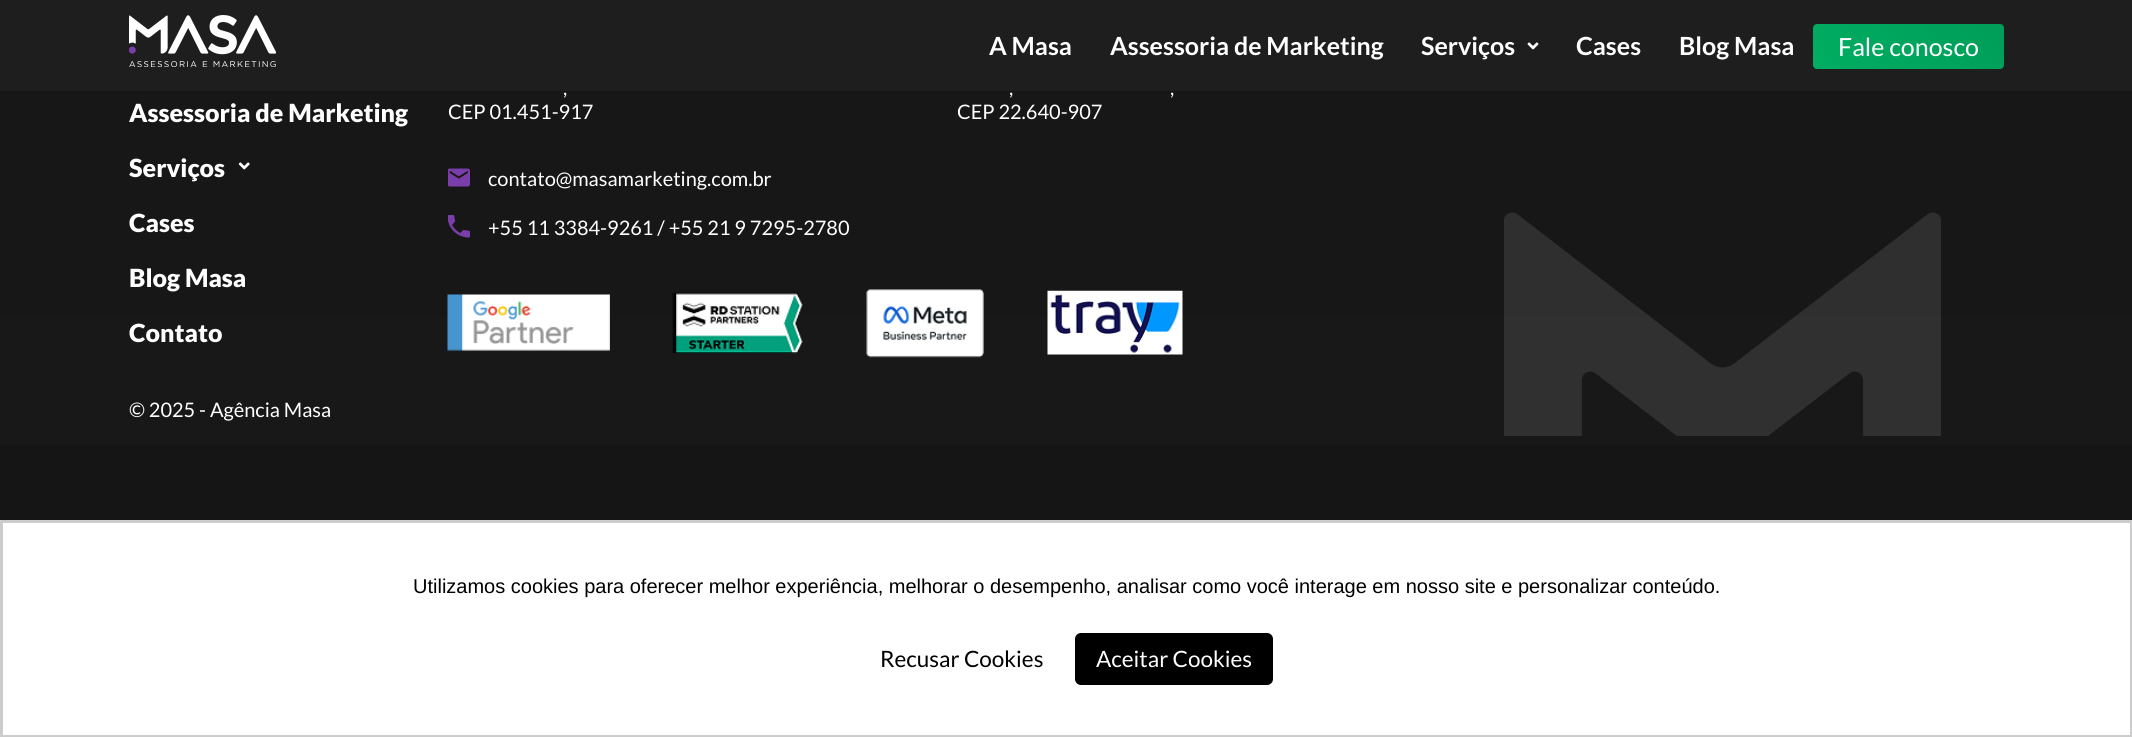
#include <cairo.h>
#include <math.h>
#include <stddef.h>


static void rgb(cairo_t *cr, int r, int g, int b)
{
	cairo_set_source_rgb(cr, r / 255.0, g / 255.0, b / 255.0);
}

static void face(cairo_t *cr, const char *family, double size, int italic, int bold)
{
	cairo_select_font_face(cr, family, italic ? CAIRO_FONT_SLANT_ITALIC : CAIRO_FONT_SLANT_NORMAL,
		bold ? CAIRO_FONT_WEIGHT_BOLD : CAIRO_FONT_WEIGHT_NORMAL);
	cairo_set_font_size(cr, size);
}

static void label(cairo_t *cr, double x, double y, const char *s)
{
	cairo_move_to(cr, x, y);
	cairo_show_text(cr, s);
}

static void rect(cairo_t *cr, double x, double y, double w, double h)
{
	cairo_rectangle(cr, x, y, w, h);
	cairo_fill(cr);
}

static void rrect(cairo_t *cr, double x, double y, double w, double h, double r)
{
	cairo_new_sub_path(cr);
	cairo_arc(cr, x + w - r, y + h - r, r, 0, M_PI / 2);
	cairo_arc(cr, x + r, y + h - r, r, M_PI / 2, M_PI);
	cairo_arc(cr, x + r, y + r, r, M_PI, 1.5 * M_PI);
	cairo_arc(cr, x + w - r, y + r, r, 1.5 * M_PI, 2 * M_PI);
	cairo_close_path(cr);
}

static void image(cairo_t *cr, const char *path, double x, double y, double w, double h)
{
	cairo_surface_t *image = cairo_image_surface_create_from_png(path);
	cairo_save(cr);
	cairo_set_source_surface(cr, image, x, y);
	cairo_rectangle(cr, x, y, w, h);
	cairo_fill(cr);
	cairo_restore(cr);
	cairo_surface_destroy(image);
}

static void draw(cairo_t *cr) {
	cairo_pattern_t *gradient;
	rgb(cr, 255, 255, 255);
	cairo_paint(cr);
	gradient = cairo_pattern_create_linear(1066, -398, 1066, 445);
	cairo_pattern_add_color_stop_rgba(gradient, 0, 0.082, 0.082, 0.082, 1);
	cairo_pattern_add_color_stop_rgba(gradient, 1, 0.094, 0.094, 0.094, 1);
	cairo_set_source(cr, gradient);
	cairo_pattern_destroy(gradient);
	rect(cr, 0, 91, 2132, 354);
	gradient = cairo_pattern_create_linear(1066, 445, 1066, 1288);
	cairo_pattern_add_color_stop_rgba(gradient, 0, 0.082, 0.082, 0.082, 1);
	cairo_pattern_add_color_stop_rgba(gradient, 1, 0.094, 0.094, 0.094, 1);
	cairo_set_source(cr, gradient);
	cairo_pattern_destroy(gradient);
	rect(cr, 0, 445, 2132, 75);
	rgb(cr, 30, 30, 30);
	rect(cr, 0, 0, 2132, 91);
	image(cr, "image0.png", 129, 15, 147, 52);
	face(cr, "Lato", 25, 0, 1);
	rgb(cr, 255, 255, 255);
	label(cr, 989, 55, "A Masa");
	label(cr, 1110, 55, "Assessoria de Marketing");
	label(cr, 1421, 55, "Serviços");
	image(cr, "image1.png", 1527, 42, 12, 8);
	label(cr, 1576, 55, "Cases");
	label(cr, 1679, 55, "Blog Masa");
	gradient = cairo_pattern_create_linear(1849, 105, 1967, -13);
	cairo_pattern_add_color_stop_rgba(gradient, 0, 0, 0.682, 0.384, 1);
	cairo_pattern_add_color_stop_rgba(gradient, 1, 0, 0.616, 0.345, 1);
	cairo_set_source(cr, gradient);
	cairo_pattern_destroy(gradient);
	rrect(cr, 1813, 24, 191, 45, 4);
	cairo_fill(cr);
	face(cr, "Lato", 25, 0, 0);
	rgb(cr, 255, 255, 255);
	label(cr, 1838, 56, "Fale conosco");
	face(cr, "Lato Black", 25, 0, 0);
	label(cr, 129, 122, "Assessoria de Marketing");
	label(cr, 129, 177, "Serviços");
	image(cr, "image2.png", 238, 162, 12, 8);
	label(cr, 129, 232, "Cases");
	label(cr, 129, 287, "Blog Masa");
	label(cr, 129, 342, "Contato");
	face(cr, "Lato", 20, 0, 0);
	label(cr, 129, 417, "© 2025 - Agência Masa");
	label(cr, 563, 95, ",");
	label(cr, 448, 119, "CEP 01.451-917");
	image(cr, "image3.png", 448, 168, 22, 19);
	label(cr, 488, 186, "contato@masamarketing.com.br");
	image(cr, "image4.png", 448, 215, 22, 23);
	label(cr, 488, 235, "+55 11 3384-9261 / +55 21 9 7295-2780");
	label(cr, 1009, 95, ",");
	label(cr, 1170, 95, ",");
	label(cr, 957, 119, "CEP 22.640-907");
	image(cr, "image5.png", 447, 294, 163, 57);
	image(cr, "image6.png", 672, 292, 132, 62);
	image(cr, "image7.png", 866, 289, 118, 69);
	image(cr, "image8.png", 1047, 290, 136, 65);
	image(cr, "image9.png", 1504, 212, 437, 224);
	cairo_rectangle(cr, 1.5, 521.5, 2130, 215);
	rgb(cr, 204, 204, 204);
	cairo_set_line_width(cr, 3);
	cairo_stroke(cr);
	face(cr, "Liberation Sans", 20, 0, 0);
	rgb(cr, 0, 0, 0);
	label(cr, 413, 593, "Utilizamos cookies para oferecer melhor experiência, melhorar o desempenho, analisar como você interage em nosso site e personalizar conteúdo.");
	face(cr, "Lato", 22.5, 0, 0);
	label(cr, 880, 667, "Recusar Cookies");
	rrect(cr, 1075, 633, 198, 52, 6);
	cairo_fill(cr);
	rgb(cr, 255, 255, 255);
	label(cr, 1096, 667, "Aceitar Cookies");
}

int main(void) {
	cairo_surface_t *surface = cairo_image_surface_create(CAIRO_FORMAT_RGB24, 2132, 737);
	cairo_t *cr = cairo_create(surface);
	cairo_font_options_t *options = cairo_font_options_create();
	cairo_font_options_set_hint_metrics(options, CAIRO_HINT_METRICS_OFF);
	cairo_font_options_set_hint_style(options, CAIRO_HINT_STYLE_NONE);
	cairo_set_font_options(cr, options);
	cairo_set_miter_limit(cr, 4);
	draw(cr);
	cairo_surface_write_to_png(surface, "render.png");
	cairo_font_options_destroy(options);
	cairo_destroy(cr);
	cairo_surface_destroy(surface);
	return 0;
}
